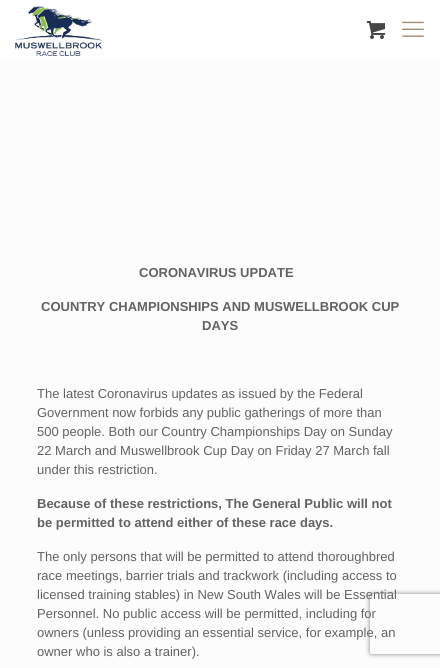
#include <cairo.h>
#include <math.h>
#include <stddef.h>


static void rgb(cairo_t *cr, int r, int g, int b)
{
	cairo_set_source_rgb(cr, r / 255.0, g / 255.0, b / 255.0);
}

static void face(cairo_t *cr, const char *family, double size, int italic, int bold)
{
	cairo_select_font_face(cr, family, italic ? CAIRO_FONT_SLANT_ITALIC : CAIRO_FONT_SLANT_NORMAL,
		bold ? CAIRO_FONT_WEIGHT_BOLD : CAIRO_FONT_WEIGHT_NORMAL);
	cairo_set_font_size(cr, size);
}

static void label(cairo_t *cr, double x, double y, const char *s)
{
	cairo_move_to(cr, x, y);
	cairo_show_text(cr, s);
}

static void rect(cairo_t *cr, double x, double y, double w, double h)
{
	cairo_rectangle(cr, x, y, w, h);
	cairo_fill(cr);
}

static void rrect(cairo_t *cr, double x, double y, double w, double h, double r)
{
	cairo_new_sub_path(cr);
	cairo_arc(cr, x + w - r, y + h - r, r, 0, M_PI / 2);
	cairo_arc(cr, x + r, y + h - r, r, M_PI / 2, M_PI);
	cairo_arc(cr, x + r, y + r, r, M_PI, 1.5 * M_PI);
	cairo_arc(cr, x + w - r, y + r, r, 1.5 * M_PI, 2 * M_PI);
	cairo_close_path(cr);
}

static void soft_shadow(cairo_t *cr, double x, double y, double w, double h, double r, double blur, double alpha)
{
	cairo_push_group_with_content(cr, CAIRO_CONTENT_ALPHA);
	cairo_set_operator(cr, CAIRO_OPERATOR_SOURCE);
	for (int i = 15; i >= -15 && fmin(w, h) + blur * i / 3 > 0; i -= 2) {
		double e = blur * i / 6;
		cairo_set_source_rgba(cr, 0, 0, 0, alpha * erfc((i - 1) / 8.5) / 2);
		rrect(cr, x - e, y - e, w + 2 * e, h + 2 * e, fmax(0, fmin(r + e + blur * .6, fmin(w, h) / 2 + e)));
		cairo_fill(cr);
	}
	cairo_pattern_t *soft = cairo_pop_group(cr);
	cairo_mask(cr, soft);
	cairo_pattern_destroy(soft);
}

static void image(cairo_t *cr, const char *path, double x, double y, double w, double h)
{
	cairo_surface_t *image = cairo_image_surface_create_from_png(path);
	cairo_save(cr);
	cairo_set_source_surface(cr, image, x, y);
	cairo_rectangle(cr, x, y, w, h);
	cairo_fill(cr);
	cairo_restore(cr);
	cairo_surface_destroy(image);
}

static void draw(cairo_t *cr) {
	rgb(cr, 252, 252, 252);
	cairo_paint(cr);
	rgb(cr, 255, 255, 255);
	rect(cr, 0, 0, 440, 61);
	image(cr, "image0.png", 15, 6, 87, 50);
	image(cr, "image1.png", 402, 21, 22, 16);
	image(cr, "image2.png", 367, 21, 18, 18);
	face(cr, "Liberation Sans", 13, 0, 1);
	rgb(cr, 98, 98, 98);
	label(cr, 139, 277, "CORONAVIRUS UPDATE");
	label(cr, 41, 311, "COUNTRY CHAMPIONSHIPS AND MUSWELLBROOK CUP");
	label(cr, 202, 330, "DAYS");
	face(cr, "Liberation Sans", 13, 0, 0);
	label(cr, 37, 398, "The latest Coronavirus updates as issued by the Federal");
	label(cr, 37, 417, "Government now forbids any public gatherings of more than");
	label(cr, 37, 436, "500 people. Both our Country Championships Day on Sunday");
	label(cr, 37, 455, "22 March and Muswellbrook Cup Day on Friday 27 March fall");
	label(cr, 37, 474, "under this restriction.");
	face(cr, "Liberation Sans", 13, 0, 1);
	label(cr, 37, 508, "Because of these restrictions, The General Public will not");
	label(cr, 37, 527, "be permitted to attend either of these race days.");
	face(cr, "Liberation Sans", 13, 0, 0);
	label(cr, 37, 561, "The only persons that will be permitted to attend thoroughbred");
	label(cr, 37, 580, "race meetings, barrier trials and trackwork (including access to");
	label(cr, 37, 599, "licensed training stables) in New South Wales will be Essential");
	label(cr, 37, 618, "Personnel. No public access will be permitted, including for");
	label(cr, 37, 637, "owners (unless providing an essential service, for example, an");
	label(cr, 37, 656, "owner who is also a trainer).");
	cairo_save(cr);
	cairo_set_fill_rule(cr, CAIRO_FILL_RULE_EVEN_ODD);
	cairo_new_path(cr);
	cairo_move_to(cr, 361, 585);
	cairo_line_to(cr, 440, 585);
	cairo_line_to(cr, 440, 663);
	cairo_line_to(cr, 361, 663);
	cairo_close_path(cr);
	cairo_move_to(cr, 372, 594);
	cairo_line_to(cr, 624, 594);
	cairo_curve_to(cr, 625, 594, 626, 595, 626, 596);
	cairo_line_to(cr, 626, 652);
	cairo_curve_to(cr, 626, 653, 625, 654, 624, 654);
	cairo_line_to(cr, 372, 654);
	cairo_curve_to(cr, 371, 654, 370, 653, 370, 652);
	cairo_line_to(cr, 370, 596);
	cairo_curve_to(cr, 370, 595, 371, 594, 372, 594);
	cairo_close_path(cr);
	cairo_clip(cr);
	rgb(cr, 128, 128, 128);
	soft_shadow(cr, 370, 594, 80, 60, 2, 2.5, 1);
	cairo_restore(cr);
}

int main(void) {
	cairo_surface_t *surface = cairo_image_surface_create(CAIRO_FORMAT_RGB24, 440, 668);
	cairo_t *cr = cairo_create(surface);
	cairo_font_options_t *options = cairo_font_options_create();
	cairo_font_options_set_hint_metrics(options, CAIRO_HINT_METRICS_OFF);
	cairo_font_options_set_hint_style(options, CAIRO_HINT_STYLE_NONE);
	cairo_set_font_options(cr, options);
	cairo_set_miter_limit(cr, 4);
	draw(cr);
	cairo_surface_write_to_png(surface, "render.png");
	cairo_font_options_destroy(options);
	cairo_destroy(cr);
	cairo_surface_destroy(surface);
	return 0;
}
